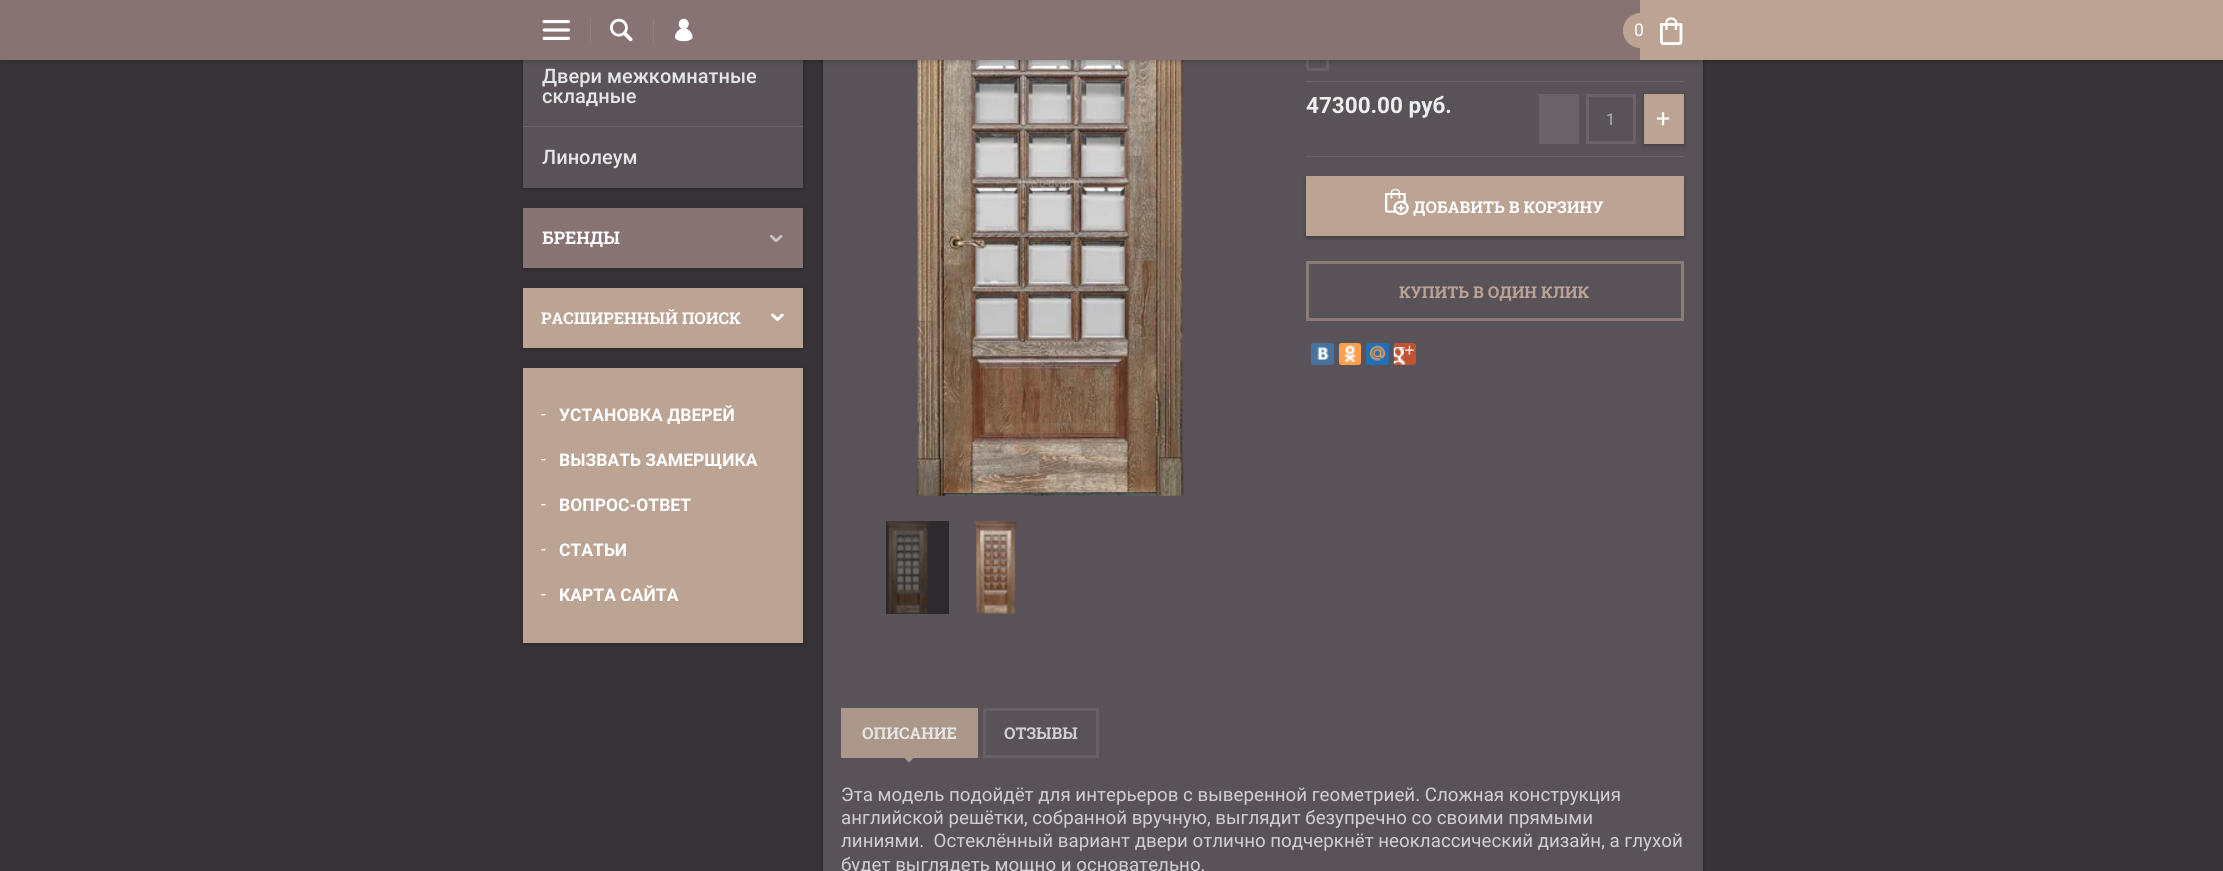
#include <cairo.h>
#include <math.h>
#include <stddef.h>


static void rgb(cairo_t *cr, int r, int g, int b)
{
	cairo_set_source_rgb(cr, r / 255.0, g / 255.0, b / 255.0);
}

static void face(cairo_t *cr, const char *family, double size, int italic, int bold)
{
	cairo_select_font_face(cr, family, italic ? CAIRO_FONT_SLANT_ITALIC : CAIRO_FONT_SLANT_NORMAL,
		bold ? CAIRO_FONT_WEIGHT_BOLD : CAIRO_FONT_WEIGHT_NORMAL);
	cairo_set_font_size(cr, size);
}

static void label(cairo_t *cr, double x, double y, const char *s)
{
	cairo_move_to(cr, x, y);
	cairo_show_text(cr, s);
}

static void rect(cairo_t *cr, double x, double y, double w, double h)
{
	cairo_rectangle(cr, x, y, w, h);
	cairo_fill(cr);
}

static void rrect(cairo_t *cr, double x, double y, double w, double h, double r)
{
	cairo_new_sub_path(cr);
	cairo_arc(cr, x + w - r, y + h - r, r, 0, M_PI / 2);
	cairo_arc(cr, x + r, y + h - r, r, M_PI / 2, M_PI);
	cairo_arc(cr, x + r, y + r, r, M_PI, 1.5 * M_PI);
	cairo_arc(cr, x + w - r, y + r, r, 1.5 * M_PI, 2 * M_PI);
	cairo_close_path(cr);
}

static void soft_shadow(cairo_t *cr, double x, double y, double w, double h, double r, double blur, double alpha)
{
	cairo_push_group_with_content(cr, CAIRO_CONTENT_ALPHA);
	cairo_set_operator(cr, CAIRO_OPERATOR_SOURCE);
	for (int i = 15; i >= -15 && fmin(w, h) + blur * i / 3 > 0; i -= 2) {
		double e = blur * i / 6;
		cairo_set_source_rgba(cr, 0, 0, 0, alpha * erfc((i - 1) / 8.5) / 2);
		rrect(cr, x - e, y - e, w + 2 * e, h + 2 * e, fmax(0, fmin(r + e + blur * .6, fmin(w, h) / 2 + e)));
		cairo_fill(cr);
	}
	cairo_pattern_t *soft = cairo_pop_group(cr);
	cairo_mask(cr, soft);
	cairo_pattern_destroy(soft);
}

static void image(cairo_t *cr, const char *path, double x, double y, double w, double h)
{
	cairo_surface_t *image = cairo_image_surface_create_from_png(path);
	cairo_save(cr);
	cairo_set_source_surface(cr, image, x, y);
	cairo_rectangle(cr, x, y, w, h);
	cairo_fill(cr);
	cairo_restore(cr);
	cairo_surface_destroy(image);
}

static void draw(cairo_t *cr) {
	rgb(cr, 56, 51, 56);
	cairo_paint(cr);
	rgb(cr, 0, 0, 0);
	soft_shadow(cr, 523, -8, 280, 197, 0, 2.5, 0.28);
	rgb(cr, 89, 82, 88);
	rect(cr, 523, 60, 280, 128);
	rgb(cr, 0, 0, 0);
	soft_shadow(cr, 823, -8, 880, 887, 0, 2.5, 0.28);
	rgb(cr, 89, 82, 88);
	rect(cr, 823, 60, 880, 811);
	image(cr, "image6.png", 916, 60, 268, 436);
	cairo_rectangle(cr, 1307.5, 50.5, 20, 19);
	rgb(cr, 103, 97, 102);
	cairo_set_line_width(cr, 3);
	cairo_stroke(cr);
	rgb(cr, 0, 0, 0);
	soft_shadow(cr, 0, 1, 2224, 60, 0, 2.5, 0.28);
	rgb(cr, 135, 115, 116);
	rect(cr, 0, 0, 1640, 60);
	image(cr, "image0.png", 542, 20, 28, 20);
	rgb(cr, 147, 129, 130);
	rect(cr, 590, 18, 1, 25);
	image(cr, "image1.png", 610, 18, 23, 24);
	rect(cr, 653, 18, 1, 25);
	image(cr, "image2.png", 675, 18, 18, 24);
	rgb(cr, 187, 164, 148);
	rect(cr, 1640, 0, 583, 60);
	cairo_arc(cr, 1640.5, 30.5, 17.5, 0, 2 * M_PI);
	cairo_fill(cr);
	face(cr, "Roboto", 17.5, 0, 0);
	rgb(cr, 255, 255, 255);
	label(cr, 1634, 36, "0");
	image(cr, "image3.png", 1660, 17, 23, 28);
	face(cr, "Roboto Medium", 20, 0, 0);
	rgb(cr, 230, 229, 230);
	label(cr, 542, 83, "Двери межкомнатные");
	label(cr, 542, 103, "складные");
	rgb(cr, 106, 99, 105);
	rect(cr, 523, 126, 280, 1);
	rgb(cr, 230, 229, 230);
	label(cr, 542, 164, "Линолеум");
	rgb(cr, 0, 0, 0);
	soft_shadow(cr, 523, 209, 280, 60, 0, 2.5, 0.28);
	rgb(cr, 135, 115, 116);
	rect(cr, 523, 208, 280, 60);
	face(cr, "Roboto Slab", 17.5, 0, 1);
	rgb(cr, 255, 255, 255);
	label(cr, 542, 244, "БРЕНДЫ");
	image(cr, "image4.png", 770, 234, 13, 9);
	rgb(cr, 0, 0, 0);
	soft_shadow(cr, 523, 289, 280, 60, 0, 2.5, 0.28);
	rgb(cr, 187, 164, 148);
	rect(cr, 523, 288, 280, 60);
	face(cr, "Roboto Slab", 16.25, 0, 1);
	rgb(cr, 255, 255, 255);
	label(cr, 541, 324, "РАСШИРЕННЫЙ ПОИСК");
	image(cr, "image5.png", 771, 313, 13, 8);
	rgb(cr, 0, 0, 0);
	soft_shadow(cr, 523, 369, 280, 275, 0, 2.5, 0.28);
	rgb(cr, 187, 164, 148);
	rect(cr, 523, 368, 280, 275);
	face(cr, "Roboto", 17.5, 0, 0);
	rgb(cr, 255, 255, 255);
	label(cr, 541, 420, "-");
	face(cr, "Roboto", 17.5, 0, 1);
	label(cr, 559, 421, "УСТАНОВКА ДВЕРЕЙ");
	face(cr, "Roboto", 17.5, 0, 0);
	label(cr, 541, 465, "-");
	face(cr, "Roboto", 17.5, 0, 1);
	label(cr, 559, 466, "ВЫЗВАТЬ ЗАМЕРЩИКА");
	face(cr, "Roboto", 17.5, 0, 0);
	label(cr, 541, 510, "-");
	face(cr, "Roboto", 17.5, 0, 1);
	label(cr, 559, 511, "ВОПРОС-ОТВЕТ");
	face(cr, "Roboto", 17.5, 0, 0);
	label(cr, 541, 555, "-");
	face(cr, "Roboto", 17.5, 0, 1);
	label(cr, 559, 556, "СТАТЬИ");
	face(cr, "Roboto", 17.5, 0, 0);
	label(cr, 541, 600, "-");
	face(cr, "Roboto", 17.5, 0, 1);
	label(cr, 559, 601, "КАРТА САЙТА");
	rgb(cr, 45, 41, 44);
	rect(cr, 886, 521, 63, 93);
	image(cr, "image7.png", 886, 521, 44, 93);
	image(cr, "image8.png", 973, 521, 45, 93);
	rgb(cr, 106, 99, 105);
	rect(cr, 1306, 81, 378, 1);
	face(cr, "Roboto", 22.5, 0, 1);
	rgb(cr, 238, 238, 238);
	label(cr, 1306, 113, "47300.00 руб.");
	rgb(cr, 106, 99, 105);
	rect(cr, 1539, 94, 40, 50);
	cairo_rectangle(cr, 1587.5, 95.5, 47, 47);
	cairo_stroke(cr);
	face(cr, "Roboto", 16.25, 0, 0);
	rgb(cr, 180, 177, 180);
	label(cr, 1606, 125, "1");
	rgb(cr, 0, 0, 0);
	soft_shadow(cr, 1644, 95, 40, 50, 0, 2.5, 0.28);
	rgb(cr, 187, 164, 148);
	rect(cr, 1644, 94, 40, 50);
	face(cr, "Roboto", 25, 0, 0);
	rgb(cr, 255, 255, 255);
	label(cr, 1656, 127, "+");
	rgb(cr, 106, 99, 105);
	rect(cr, 1306, 156, 378, 1);
	rgb(cr, 0, 0, 0);
	soft_shadow(cr, 1306, 178, 378, 60, 0, 2.5, 0.28);
	rgb(cr, 187, 164, 148);
	rect(cr, 1306, 176, 378, 60);
	image(cr, "image9.png", 1385, 188, 24, 27);
	face(cr, "Roboto Slab", 16.25, 0, 1);
	rgb(cr, 255, 255, 255);
	label(cr, 1413, 213, "ДОБАВИТЬ В КОРЗИНУ");
	cairo_rectangle(cr, 1307.5, 262.5, 375, 57);
	rgb(cr, 138, 123, 118);
	cairo_stroke(cr);
	rgb(cr, 187, 164, 148);
	label(cr, 1399, 298, "КУПИТЬ В ОДИН КЛИК");
	rgb(cr, 72, 114, 158);
	rrect(cr, 1311, 343, 23, 22, 2.5);
	cairo_fill(cr);
	image(cr, "image10.png", 1317, 346, 12, 14);
	rgb(cr, 255, 159, 77);
	rrect(cr, 1339, 343, 22, 22, 2.5);
	cairo_fill(cr);
	image(cr, "image11.png", 1344, 345, 12, 18);
	rgb(cr, 34, 110, 183);
	rrect(cr, 1366, 343, 23, 22, 2.5);
	cairo_fill(cr);
	image(cr, "image12.png", 1369, 345, 17, 16);
	rgb(cr, 194, 82, 52);
	rrect(cr, 1394, 343, 22, 22, 2.5);
	cairo_fill(cr);
	image(cr, "image13.png", 1393, 345, 21, 20);
	rgb(cr, 172, 152, 139);
	rect(cr, 841, 708, 137, 50);
	rgb(cr, 230, 229, 230);
	label(cr, 862, 739, "ОПИСАНИЕ");
	rgb(cr, 172, 152, 139);
	cairo_new_path(cr);
	cairo_move_to(cr, 904, 757.5);
	cairo_line_to(cr, 914, 757.5);
	cairo_line_to(cr, 909, 762.5);
	cairo_close_path(cr);
	cairo_fill(cr);
	cairo_rectangle(cr, 984.5, 709.5, 113, 47);
	rgb(cr, 103, 97, 102);
	cairo_stroke(cr);
	rgb(cr, 209, 207, 209);
	label(cr, 1004, 739, "ОТЗЫВЫ");
	face(cr, "Roboto", 18.75, 0, 0);
	label(cr, 841, 801, "Эта модель подойдёт для интерьеров с выверенной геометрией. Сложная конструкция");
	label(cr, 841, 824, "английской решётки, собранной вручную, выглядит безупречно со своими прямыми");
	label(cr, 841, 847, "линиями.  Остеклённый вариант двери отлично подчеркнёт неоклассический дизайн, а глухой");
	label(cr, 841, 871, "будет выглядеть мощно и основательно.");
}

int main(void) {
	cairo_surface_t *surface = cairo_image_surface_create(CAIRO_FORMAT_RGB24, 2223, 871);
	cairo_t *cr = cairo_create(surface);
	cairo_font_options_t *options = cairo_font_options_create();
	cairo_font_options_set_hint_metrics(options, CAIRO_HINT_METRICS_OFF);
	cairo_font_options_set_hint_style(options, CAIRO_HINT_STYLE_NONE);
	cairo_set_font_options(cr, options);
	cairo_set_miter_limit(cr, 4);
	draw(cr);
	cairo_surface_write_to_png(surface, "render.png");
	cairo_font_options_destroy(options);
	cairo_destroy(cr);
	cairo_surface_destroy(surface);
	return 0;
}
